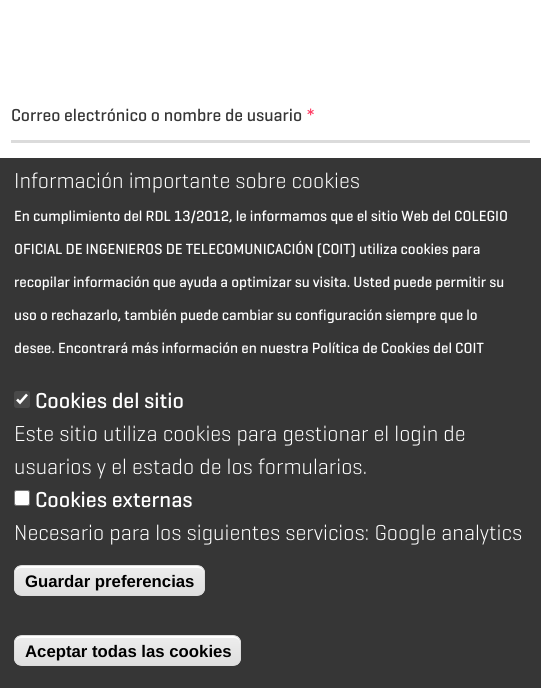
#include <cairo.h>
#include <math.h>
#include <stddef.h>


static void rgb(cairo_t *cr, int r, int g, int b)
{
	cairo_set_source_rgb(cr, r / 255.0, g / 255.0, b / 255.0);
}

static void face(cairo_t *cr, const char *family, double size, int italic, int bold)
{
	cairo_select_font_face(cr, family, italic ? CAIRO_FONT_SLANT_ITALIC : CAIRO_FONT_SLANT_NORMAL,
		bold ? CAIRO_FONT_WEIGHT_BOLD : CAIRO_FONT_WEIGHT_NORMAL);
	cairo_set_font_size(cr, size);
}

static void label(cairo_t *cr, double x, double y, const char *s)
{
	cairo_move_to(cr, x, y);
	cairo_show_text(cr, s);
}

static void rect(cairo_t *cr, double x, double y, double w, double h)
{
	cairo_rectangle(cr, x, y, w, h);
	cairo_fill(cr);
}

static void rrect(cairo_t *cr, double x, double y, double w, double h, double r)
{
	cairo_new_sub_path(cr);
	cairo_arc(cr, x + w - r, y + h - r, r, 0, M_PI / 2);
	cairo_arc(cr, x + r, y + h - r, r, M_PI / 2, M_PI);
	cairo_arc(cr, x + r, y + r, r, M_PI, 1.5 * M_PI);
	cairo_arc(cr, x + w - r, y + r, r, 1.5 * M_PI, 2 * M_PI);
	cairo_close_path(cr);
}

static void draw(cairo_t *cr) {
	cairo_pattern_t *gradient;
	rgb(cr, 255, 255, 255);
	cairo_paint(cr);
	rgb(cr, 219, 219, 219);
	rect(cr, 11, 140, 519, 3);
	face(cr, "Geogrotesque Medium", 17.6, 0, 0);
	rgb(cr, 54, 54, 54);
	label(cr, 11, 121, "Correo electrónico o nombre de usuario");
	rgb(cr, 255, 56, 96);
	label(cr, 306, 121, "*");
	rgb(cr, 54, 54, 54);
	rect(cr, 0, 158, 541, 530);
	face(cr, "Geogrotesque Light", 22, 0, 0);
	rgb(cr, 255, 255, 255);
	label(cr, 14, 188, "Información importante sobre cookies");
	face(cr, "Geogrotesque Medium", 15, 0, 0);
	label(cr, 14, 221, "En cumplimiento del RDL 13/2012, le informamos que el sitio Web del COLEGIO");
	label(cr, 14, 254, "OFICIAL DE INGENIEROS DE TELECOMUNICACIÓN (COIT) utiliza cookies para");
	label(cr, 14, 287, "recopilar información que ayuda a optimizar su visita. Usted puede permitir su");
	label(cr, 14, 320, "uso o rechazarlo, también puede cambiar su configuración siempre que lo");
	label(cr, 14, 353, "desee. Encontrará más información en nuestra Política de Cookies del COIT");
	rgb(cr, 73, 73, 73);
	rrect(cr, 14, 391, 16, 17, 2.5);
	cairo_fill(cr);
	cairo_new_path(cr);
	cairo_move_to(cr, 17, 399.5);
	cairo_line_to(cr, 20, 402.5);
	cairo_line_to(cr, 27, 394.5);
	rgb(cr, 255, 255, 255);
	cairo_set_line_width(cr, 2.6);
	cairo_stroke(cr);
	face(cr, "Geogrotesque Medium", 22, 0, 0);
	label(cr, 35, 408, "Cookies del sitio");
	face(cr, "Geogrotesque Light", 22, 0, 0);
	label(cr, 14, 441, "Este sitio utiliza cookies para gestionar el login de");
	label(cr, 14, 474, "usuarios y el estado de los formularios.");
	rrect(cr, 14.5, 490.5, 15, 15, 2);
	cairo_fill_preserve(cr);
	rgb(cr, 118, 118, 118);
	cairo_set_line_width(cr, 1);
	cairo_stroke(cr);
	face(cr, "Geogrotesque Medium", 22, 0, 0);
	rgb(cr, 255, 255, 255);
	label(cr, 35, 507, "Cookies externas");
	face(cr, "Geogrotesque Light", 22, 0, 0);
	label(cr, 14, 540, "Necesario para los siguientes servicios: Google analytics");
	cairo_save(cr);
	rrect(cr, 14, 565, 191, 31, 8);
	cairo_clip(cr);
	gradient = cairo_pattern_create_linear(109, 566, 109, 595);
	cairo_pattern_add_color_stop_rgba(gradient, 0.05, 0.929, 0.929, 0.929, 1);
	cairo_pattern_add_color_stop_rgba(gradient, 1, 0.875, 0.875, 0.875, 1);
	cairo_set_source(cr, gradient);
	cairo_pattern_destroy(gradient);
	rect(cr, 14, 566, 191, 29);
	cairo_restore(cr);
	cairo_new_path(cr);
	cairo_move_to(cr, 21, 568);
	cairo_line_to(cr, 198, 568);
	cairo_curve_to(cr, 201, 568, 204, 570, 204, 574);
	cairo_line_to(cr, 204, 572);
	cairo_curve_to(cr, 204, 569, 201, 566, 198, 566);
	cairo_line_to(cr, 21, 566);
	cairo_curve_to(cr, 18, 566, 15, 569, 15, 572);
	cairo_line_to(cr, 15, 574);
	cairo_curve_to(cr, 15, 570, 18, 568, 21, 568);
	cairo_close_path(cr);
	cairo_fill(cr);
	rrect(cr, 14.5, 565.5, 190, 30, 7.5);
	rgb(cr, 220, 220, 220);
	cairo_stroke(cr);
	face(cr, "Liberation Sans", 16.75, 0, 1);
	rgb(cr, 0, 0, 0);
	label(cr, 25, 587, "Guardar preferencias");
	cairo_save(cr);
	rrect(cr, 14, 635, 227, 31, 8);
	cairo_clip(cr);
	gradient = cairo_pattern_create_linear(128, 636, 128, 665);
	cairo_pattern_add_color_stop_rgba(gradient, 0.05, 0.929, 0.929, 0.929, 1);
	cairo_pattern_add_color_stop_rgba(gradient, 1, 0.875, 0.875, 0.875, 1);
	cairo_set_source(cr, gradient);
	cairo_pattern_destroy(gradient);
	rect(cr, 14, 636, 227, 29);
	cairo_restore(cr);
	rgb(cr, 255, 255, 255);
	cairo_new_path(cr);
	cairo_move_to(cr, 21, 638);
	cairo_line_to(cr, 234, 638);
	cairo_curve_to(cr, 237, 638, 240, 640, 240, 644);
	cairo_line_to(cr, 240, 642);
	cairo_curve_to(cr, 240, 639, 237, 636, 234, 636);
	cairo_line_to(cr, 21, 636);
	cairo_curve_to(cr, 18, 636, 15, 639, 15, 642);
	cairo_line_to(cr, 15, 644);
	cairo_curve_to(cr, 15, 640, 18, 638, 21, 638);
	cairo_close_path(cr);
	cairo_fill(cr);
	rrect(cr, 14.5, 635.5, 226, 30, 7.5);
	rgb(cr, 220, 220, 220);
	cairo_stroke(cr);
	rgb(cr, 0, 0, 0);
	label(cr, 25, 657, "Aceptar todas las cookies");
}

int main(void) {
	cairo_surface_t *surface = cairo_image_surface_create(CAIRO_FORMAT_RGB24, 541, 688);
	cairo_t *cr = cairo_create(surface);
	cairo_font_options_t *options = cairo_font_options_create();
	cairo_font_options_set_hint_metrics(options, CAIRO_HINT_METRICS_OFF);
	cairo_font_options_set_hint_style(options, CAIRO_HINT_STYLE_NONE);
	cairo_set_font_options(cr, options);
	cairo_set_miter_limit(cr, 4);
	draw(cr);
	cairo_surface_write_to_png(surface, "render.png");
	cairo_font_options_destroy(options);
	cairo_destroy(cr);
	cairo_surface_destroy(surface);
	return 0;
}
